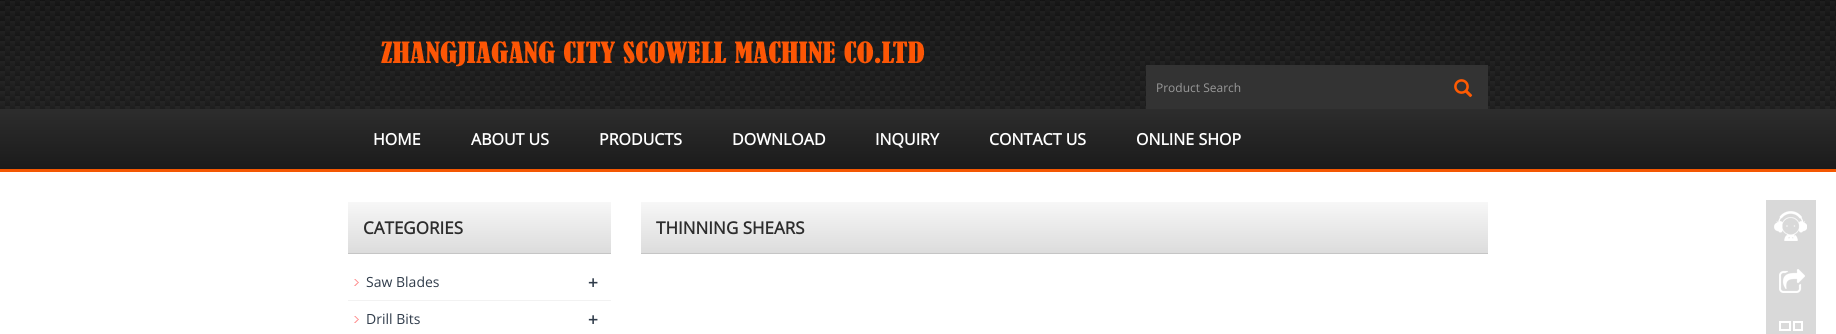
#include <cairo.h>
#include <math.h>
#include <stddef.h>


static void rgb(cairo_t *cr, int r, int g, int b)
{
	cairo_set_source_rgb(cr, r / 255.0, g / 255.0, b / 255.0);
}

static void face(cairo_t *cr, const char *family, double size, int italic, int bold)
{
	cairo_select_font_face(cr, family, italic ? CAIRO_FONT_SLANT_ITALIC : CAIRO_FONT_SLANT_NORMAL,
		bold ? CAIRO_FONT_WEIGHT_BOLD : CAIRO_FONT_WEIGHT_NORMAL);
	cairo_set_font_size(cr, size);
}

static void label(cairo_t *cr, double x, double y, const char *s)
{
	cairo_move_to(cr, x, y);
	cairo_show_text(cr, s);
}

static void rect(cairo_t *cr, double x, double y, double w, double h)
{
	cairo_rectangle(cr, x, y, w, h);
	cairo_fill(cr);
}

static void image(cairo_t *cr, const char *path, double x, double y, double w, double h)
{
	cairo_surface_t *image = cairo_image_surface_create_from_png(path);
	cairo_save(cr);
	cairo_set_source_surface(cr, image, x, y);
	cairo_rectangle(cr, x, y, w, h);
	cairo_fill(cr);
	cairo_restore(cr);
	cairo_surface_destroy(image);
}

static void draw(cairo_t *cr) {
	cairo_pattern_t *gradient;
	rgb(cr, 255, 255, 255);
	cairo_paint(cr);
	image(cr, "image0.png", 0, 0, 1836, 109);
	image(cr, "image1.png", 381, 41, 543, 26);
	rgb(cr, 51, 51, 51);
	rect(cr, 1146, 65, 342, 44);
	face(cr, "Open Sans", 12, 0, 0);
	rgb(cr, 153, 153, 153);
	label(cr, 1156, 92, "Product Search");
	image(cr, "image2.png", 1454, 79, 19, 19);
	gradient = cairo_pattern_create_linear(918, 109, 918, 169);
	cairo_pattern_add_color_stop_rgba(gradient, 0, 0.176, 0.176, 0.176, 1);
	cairo_pattern_add_color_stop_rgba(gradient, 1, 0.106, 0.106, 0.106, 1);
	cairo_set_source(cr, gradient);
	cairo_pattern_destroy(gradient);
	rect(cr, 0, 109, 1836, 60);
	rgb(cr, 244, 87, 2);
	rect(cr, 0, 169, 1836, 3);
	face(cr, "Open Sans", 16, 0, 1);
	rgb(cr, 255, 255, 255);
	label(cr, 373, 145, "HOME");
	label(cr, 471, 145, "ABOUT US");
	label(cr, 599, 145, "PRODUCTS");
	label(cr, 732, 145, "DOWNLOAD");
	label(cr, 875, 145, "INQUIRY");
	label(cr, 989, 145, "CONTACT US");
	label(cr, 1136, 145, "ONLINE SHOP");
	gradient = cairo_pattern_create_linear(480, 202, 480, 253);
	cairo_pattern_add_color_stop_rgba(gradient, 0, 0.969, 0.969, 0.969, 1);
	cairo_pattern_add_color_stop_rgba(gradient, 1, 0.863, 0.863, 0.863, 1);
	cairo_set_source(cr, gradient);
	cairo_pattern_destroy(gradient);
	rect(cr, 348, 202, 263, 51);
	rgb(cr, 197, 197, 197);
	rect(cr, 348, 253, 263, 1);
	face(cr, "Open Sans", 17, 0, 1);
	rgb(cr, 45, 45, 45);
	label(cr, 363, 234, "CATEGORIES");
	image(cr, "image3.png", 354, 279, 5, 7);
	rgb(cr, 242, 242, 242);
	rect(cr, 348, 300, 263, 1);
	face(cr, "Open Sans", 14, 0, 0);
	rgb(cr, 48, 60, 75);
	label(cr, 366, 287, "Saw Blades");
	face(cr, "Open Sans SemiBold", 18, 0, 0);
	label(cr, 588, 289, "+");
	image(cr, "image3.png", 354, 316, 5, 7);
	face(cr, "Open Sans", 14, 0, 0);
	label(cr, 366, 324, "Drill Bits");
	face(cr, "Open Sans SemiBold", 18, 0, 0);
	label(cr, 588, 326, "+");
	gradient = cairo_pattern_create_linear(1065, 202, 1065, 253);
	cairo_pattern_add_color_stop_rgba(gradient, 0, 0.969, 0.969, 0.969, 1);
	cairo_pattern_add_color_stop_rgba(gradient, 1, 0.863, 0.863, 0.863, 1);
	cairo_set_source(cr, gradient);
	cairo_pattern_destroy(gradient);
	rect(cr, 641, 202, 847, 51);
	rgb(cr, 197, 197, 197);
	rect(cr, 641, 253, 847, 1);
	face(cr, "Open Sans", 17, 0, 1);
	rgb(cr, 45, 45, 45);
	label(cr, 656, 234, "THINNING SHEARS");
	image(cr, "image4.png", 1766, 200, 50, 134);
}

int main(void) {
	cairo_surface_t *surface = cairo_image_surface_create(CAIRO_FORMAT_RGB24, 1836, 334);
	cairo_t *cr = cairo_create(surface);
	cairo_font_options_t *options = cairo_font_options_create();
	cairo_font_options_set_hint_metrics(options, CAIRO_HINT_METRICS_OFF);
	cairo_font_options_set_hint_style(options, CAIRO_HINT_STYLE_NONE);
	cairo_set_font_options(cr, options);
	cairo_set_miter_limit(cr, 4);
	draw(cr);
	cairo_surface_write_to_png(surface, "render.png");
	cairo_font_options_destroy(options);
	cairo_destroy(cr);
	cairo_surface_destroy(surface);
	return 0;
}
